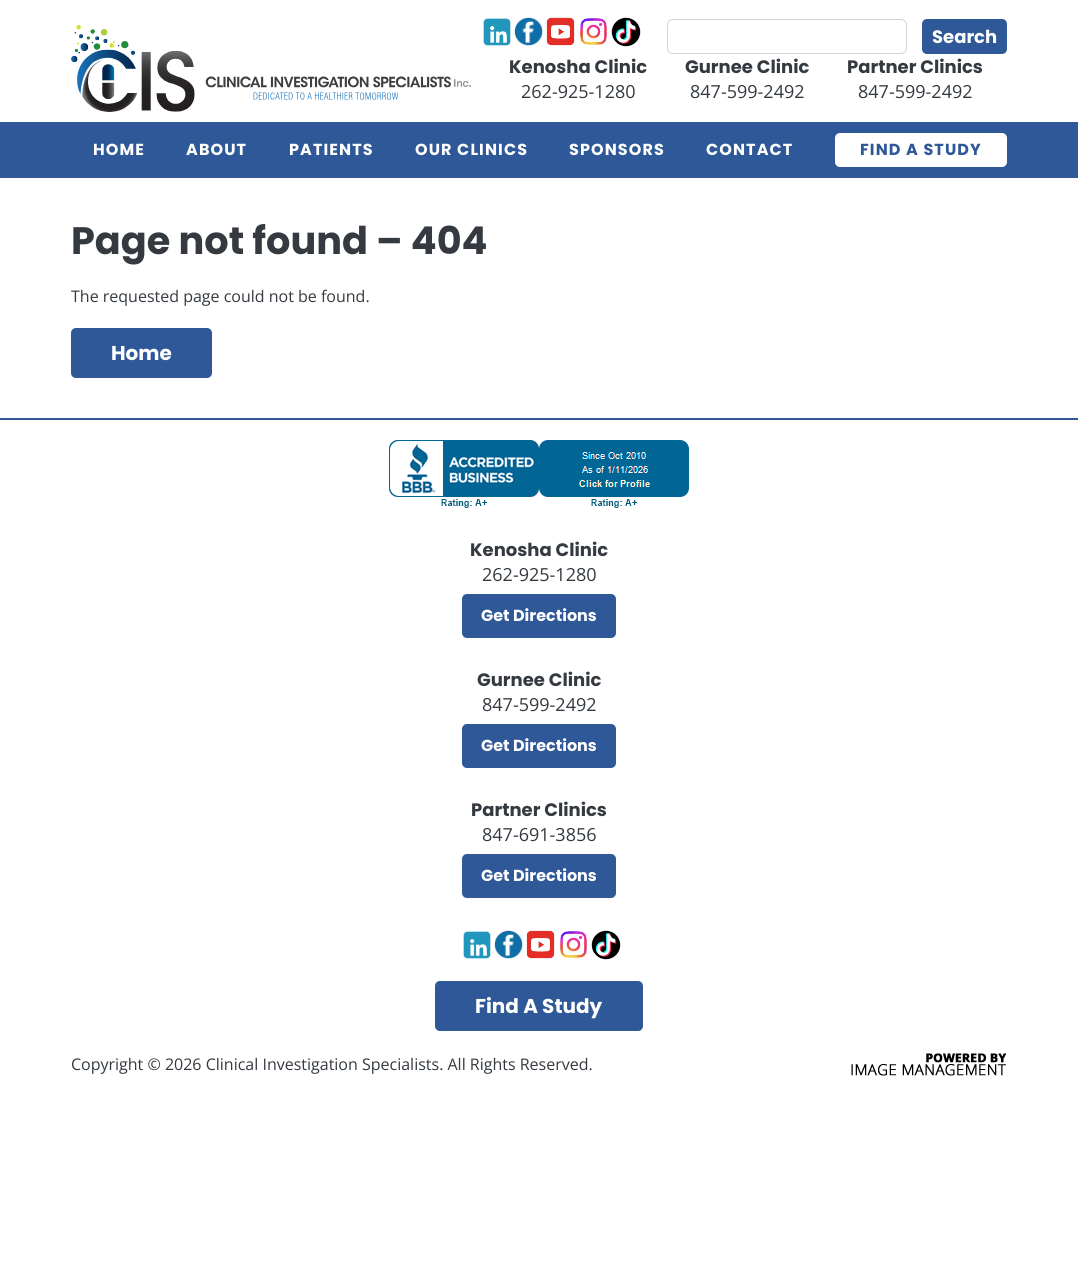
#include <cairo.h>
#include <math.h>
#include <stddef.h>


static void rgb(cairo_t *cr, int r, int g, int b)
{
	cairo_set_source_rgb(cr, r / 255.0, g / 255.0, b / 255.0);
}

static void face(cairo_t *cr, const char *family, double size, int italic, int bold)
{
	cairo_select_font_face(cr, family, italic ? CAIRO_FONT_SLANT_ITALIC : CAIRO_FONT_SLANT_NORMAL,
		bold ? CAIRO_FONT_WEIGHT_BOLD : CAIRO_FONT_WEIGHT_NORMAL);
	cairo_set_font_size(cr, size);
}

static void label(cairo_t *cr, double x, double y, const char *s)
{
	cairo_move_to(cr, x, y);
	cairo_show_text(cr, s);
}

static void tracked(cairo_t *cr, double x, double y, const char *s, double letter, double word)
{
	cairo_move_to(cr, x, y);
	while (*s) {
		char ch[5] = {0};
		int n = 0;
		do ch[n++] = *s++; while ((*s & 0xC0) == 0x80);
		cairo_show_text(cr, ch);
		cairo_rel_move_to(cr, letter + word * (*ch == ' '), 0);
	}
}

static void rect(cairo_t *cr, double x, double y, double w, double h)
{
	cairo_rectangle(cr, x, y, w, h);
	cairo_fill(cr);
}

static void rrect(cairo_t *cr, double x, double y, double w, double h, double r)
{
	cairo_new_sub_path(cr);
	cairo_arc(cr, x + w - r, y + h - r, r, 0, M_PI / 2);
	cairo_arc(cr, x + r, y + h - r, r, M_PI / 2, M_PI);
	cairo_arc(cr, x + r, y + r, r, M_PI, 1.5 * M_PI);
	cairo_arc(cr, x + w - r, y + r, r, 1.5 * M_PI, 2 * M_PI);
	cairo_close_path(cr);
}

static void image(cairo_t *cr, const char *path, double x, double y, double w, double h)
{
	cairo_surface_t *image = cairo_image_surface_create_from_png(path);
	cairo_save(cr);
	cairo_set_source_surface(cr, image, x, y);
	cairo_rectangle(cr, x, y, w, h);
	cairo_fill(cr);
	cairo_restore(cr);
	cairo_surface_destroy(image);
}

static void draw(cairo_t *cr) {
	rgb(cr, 255, 255, 255);
	cairo_paint(cr);
	image(cr, "image0.png", 71, 25, 400, 87);
	image(cr, "image1.png", 483, 18, 28, 28);
	image(cr, "image2.png", 514, 17, 29, 29);
	image(cr, "image3.png", 546, 17, 29, 29);
	image(cr, "image4.png", 580, 18, 27, 27);
	image(cr, "image5.png", 611, 17, 30, 30);
	rrect(cr, 667.5, 19.5, 239, 34, 5.5);
	rgb(cr, 206, 212, 218);
	cairo_set_line_width(cr, 1);
	cairo_stroke(cr);
	rgb(cr, 46, 88, 151);
	rrect(cr, 922, 19, 85, 35, 5);
	cairo_fill(cr);
	face(cr, "Poppins", 18, 0, 1);
	rgb(cr, 255, 255, 255);
	label(cr, 932, 43, "Search");
	rgb(cr, 52, 58, 64);
	label(cr, 509, 73, "Kenosha Clinic");
	face(cr, "Open Sans", 18, 0, 0);
	label(cr, 521, 98, "262-925-1280");
	face(cr, "Poppins", 18, 0, 1);
	label(cr, 685, 73, "Gurnee Clinic");
	face(cr, "Open Sans", 18, 0, 0);
	label(cr, 690, 98, "847-599-2492");
	face(cr, "Poppins", 18, 0, 1);
	label(cr, 847, 73, "Partner Clinics");
	face(cr, "Open Sans", 18, 0, 0);
	label(cr, 858, 98, "847-599-2492");
	rgb(cr, 46, 88, 151);
	rect(cr, 0, 122, 1078, 56);
	face(cr, "Poppins", 16, 0, 1);
	rgb(cr, 255, 255, 255);
	tracked(cr, 93, 155, "HOME", 1.1, 0);
	tracked(cr, 186, 155, "ABOUT", 1.1, 0);
	tracked(cr, 289, 155, "PATIENTS", 1.1, 0);
	tracked(cr, 415, 155, "OUR CLINICS", 1.1, 0);
	tracked(cr, 569, 155, "SPONSORS", 1.1, 0);
	tracked(cr, 706, 155, "CONTACT", 1.1, 0);
	rrect(cr, 835, 133, 172, 34, 5);
	cairo_fill(cr);
	rgb(cr, 46, 88, 151);
	tracked(cr, 860, 155, "FIND A STUDY", 1.1, 0);
	face(cr, "Poppins", 38.25, 0, 1);
	rgb(cr, 52, 58, 64);
	label(cr, 71, 254, "Page not found – 404");
	face(cr, "Open Sans", 16, 0, 0);
	label(cr, 71, 302, "The requested page could not be found.");
	rgb(cr, 46, 88, 151);
	rrect(cr, 71, 328, 141, 50, 5);
	cairo_fill(cr);
	face(cr, "Poppins", 20, 0, 1);
	rgb(cr, 255, 255, 255);
	label(cr, 111, 360, "Home");
	rgb(cr, 46, 88, 151);
	rect(cr, 0, 418, 1078, 2);
	image(cr, "image6.png", 389, 440, 300, 68);
	face(cr, "Poppins", 18, 0, 1);
	rgb(cr, 52, 58, 64);
	label(cr, 470, 556, "Kenosha Clinic");
	face(cr, "Open Sans", 18, 0, 0);
	label(cr, 482, 581, "262-925-1280");
	rgb(cr, 46, 88, 151);
	rrect(cr, 462, 594, 154, 44, 5);
	cairo_fill(cr);
	face(cr, "Poppins", 16, 0, 1);
	rgb(cr, 255, 255, 255);
	label(cr, 481, 621, "Get Directions");
	face(cr, "Poppins", 18, 0, 1);
	rgb(cr, 52, 58, 64);
	label(cr, 477, 686, "Gurnee Clinic");
	face(cr, "Open Sans", 18, 0, 0);
	label(cr, 482, 711, "847-599-2492");
	rgb(cr, 46, 88, 151);
	rrect(cr, 462, 724, 154, 44, 5);
	cairo_fill(cr);
	face(cr, "Poppins", 16, 0, 1);
	rgb(cr, 255, 255, 255);
	label(cr, 481, 751, "Get Directions");
	face(cr, "Poppins", 18, 0, 1);
	rgb(cr, 52, 58, 64);
	label(cr, 471, 816, "Partner Clinics");
	face(cr, "Open Sans", 18, 0, 0);
	label(cr, 482, 841, "847-691-3856");
	rgb(cr, 46, 88, 151);
	rrect(cr, 462, 854, 154, 44, 5);
	cairo_fill(cr);
	face(cr, "Poppins", 16, 0, 1);
	rgb(cr, 255, 255, 255);
	label(cr, 481, 881, "Get Directions");
	image(cr, "image1.png", 463, 931, 28, 28);
	image(cr, "image2.png", 494, 930, 29, 29);
	image(cr, "image7.png", 526, 930, 29, 29);
	image(cr, "image8.png", 560, 931, 27, 27);
	image(cr, "image5.png", 591, 930, 30, 30);
	rgb(cr, 46, 88, 151);
	rrect(cr, 435, 981, 208, 50, 5);
	cairo_fill(cr);
	face(cr, "Poppins", 20, 0, 1);
	rgb(cr, 255, 255, 255);
	label(cr, 475, 1013, "Find A Study");
	face(cr, "Open Sans", 16, 0, 0);
	rgb(cr, 52, 58, 64);
	label(cr, 71, 1070, "Copyright © 2026 Clinical Investigation Specialists. All Rights Reserved.");
	image(cr, "image9.png", 851, 1053, 156, 23);
}

int main(void) {
	cairo_surface_t *surface = cairo_image_surface_create(CAIRO_FORMAT_RGB24, 1078, 1279);
	cairo_t *cr = cairo_create(surface);
	cairo_font_options_t *options = cairo_font_options_create();
	cairo_font_options_set_hint_metrics(options, CAIRO_HINT_METRICS_OFF);
	cairo_font_options_set_hint_style(options, CAIRO_HINT_STYLE_NONE);
	cairo_set_font_options(cr, options);
	cairo_set_miter_limit(cr, 4);
	draw(cr);
	cairo_surface_write_to_png(surface, "render.png");
	cairo_font_options_destroy(options);
	cairo_destroy(cr);
	cairo_surface_destroy(surface);
	return 0;
}
